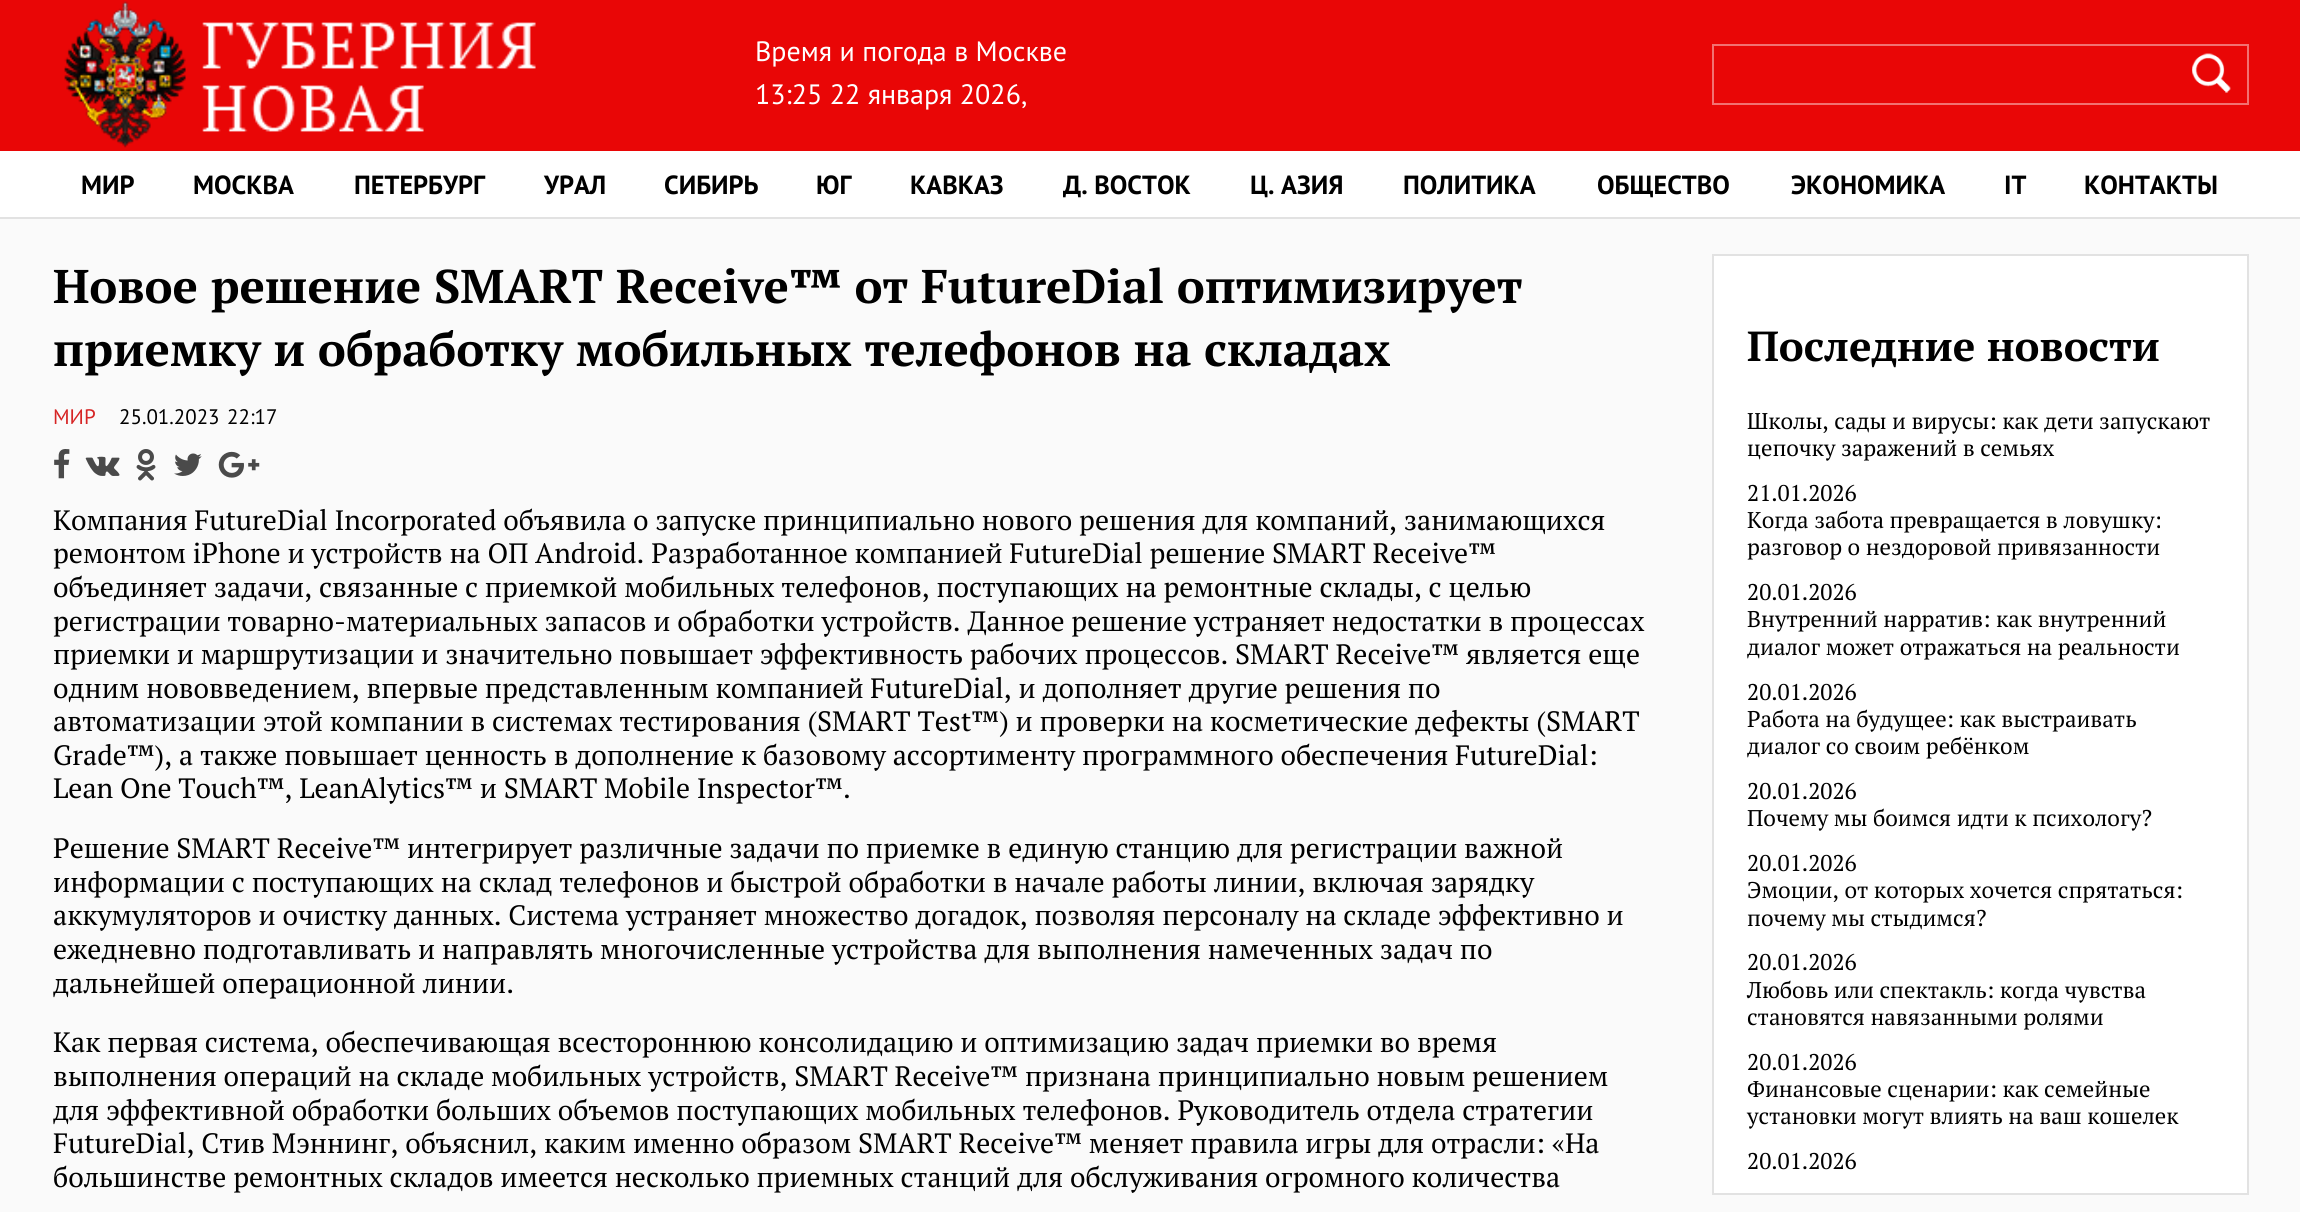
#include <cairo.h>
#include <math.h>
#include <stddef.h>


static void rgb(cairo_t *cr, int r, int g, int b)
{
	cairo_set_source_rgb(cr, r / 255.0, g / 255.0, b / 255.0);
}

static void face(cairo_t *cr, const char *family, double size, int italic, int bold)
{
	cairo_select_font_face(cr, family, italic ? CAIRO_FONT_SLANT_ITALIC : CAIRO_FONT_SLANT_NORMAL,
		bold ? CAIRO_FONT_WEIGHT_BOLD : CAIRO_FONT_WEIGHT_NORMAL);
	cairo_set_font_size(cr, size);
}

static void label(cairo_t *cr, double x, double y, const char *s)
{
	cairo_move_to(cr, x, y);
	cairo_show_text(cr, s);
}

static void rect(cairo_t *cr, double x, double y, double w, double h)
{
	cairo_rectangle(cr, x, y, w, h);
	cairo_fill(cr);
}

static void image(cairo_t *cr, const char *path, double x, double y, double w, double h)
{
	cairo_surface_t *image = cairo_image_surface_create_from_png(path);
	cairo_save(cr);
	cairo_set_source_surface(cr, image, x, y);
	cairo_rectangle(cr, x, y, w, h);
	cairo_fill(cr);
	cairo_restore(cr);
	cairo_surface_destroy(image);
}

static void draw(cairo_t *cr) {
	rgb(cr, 250, 250, 250);
	cairo_paint(cr);
	rgb(cr, 233, 6, 6);
	rect(cr, 0, 0, 2300, 151);
	image(cr, "image0.png", 64, 1, 472, 147);
	face(cr, "PT Sans", 28, 0, 0);
	rgb(cr, 255, 255, 255);
	label(cr, 755, 61, "Время и погода в Москве");
	label(cr, 755, 104, "13:25 22 января 2026,");
	cairo_rectangle(cr, 1713, 45, 535, 59);
	rgb(cr, 242, 113, 113);
	cairo_stroke(cr);
	image(cr, "image1.png", 2192, 53, 39, 40);
	rgb(cr, 255, 255, 255);
	rect(cr, 0, 151, 2300, 66);
	rgb(cr, 226, 226, 226);
	rect(cr, 0, 217, 2300, 2);
	face(cr, "PT Sans", 26.25, 0, 1);
	rgb(cr, 0, 0, 0);
	label(cr, 81, 194, "МИР");
	label(cr, 193, 194, "МОСКВА");
	label(cr, 354, 194, "ПЕТЕРБУРГ");
	label(cr, 544, 194, "УРАЛ");
	label(cr, 664, 194, "СИБИРЬ");
	label(cr, 816, 194, "ЮГ");
	label(cr, 910, 194, "КАВКАЗ");
	label(cr, 1063, 194, "Д. ВОСТОК");
	label(cr, 1250, 194, "Ц. АЗИЯ");
	label(cr, 1403, 194, "ПОЛИТИКА");
	label(cr, 1597, 194, "ОБЩЕСТВО");
	label(cr, 1791, 194, "ЭКОНОМИКА");
	label(cr, 2004, 194, "IT");
	label(cr, 2084, 194, "КОНТАКТЫ");
	face(cr, "PT Serif", 47.25, 0, 1);
	label(cr, 53, 303, "Новое решение SMART Receive™ от FutureDial оптимизирует");
	label(cr, 53, 366, "приемку и обработку мобильных телефонов на складах");
	face(cr, "PT Sans", 21, 0, 0);
	rgb(cr, 214, 37, 37);
	label(cr, 53, 424, "МИР");
	rgb(cr, 0, 0, 0);
	label(cr, 119, 424, "25.01.2023");
	label(cr, 227, 424, "22:17");
	image(cr, "image2.png", 54, 449, 16, 30);
	image(cr, "image3.png", 85, 456, 35, 20);
	image(cr, "image4.png", 136, 449, 20, 32);
	image(cr, "image5.png", 174, 453, 28, 23);
	image(cr, "image6.png", 218, 451, 42, 27);
	face(cr, "PT Serif", 28, 0, 0);
	label(cr, 53, 530, "Компания FutureDial Incorporated объявила о запуске принципиально нового решения для компаний, занимающихся");
	label(cr, 53, 563, "ремонтом iPhone и устройств на ОП Android. Разработанное компанией FutureDial решение SMART Receive™");
	label(cr, 53, 597, "объединяет задачи, связанные с приемкой мобильных телефонов, поступающих на ремонтные склады, с целью");
	label(cr, 53, 631, "регистрации товарно-материальных запасов и обработки устройств. Данное решение устраняет недостатки в процессах");
	label(cr, 53, 664, "приемки и маршрутизации и значительно повышает эффективность рабочих процессов. SMART Receive™ является еще");
	label(cr, 53, 698, "одним нововведением, впервые представленным компанией FutureDial, и дополняет другие решения по");
	label(cr, 53, 731, "автоматизации этой компании в системах тестирования (SMART Test™) и проверки на косметические дефекты (SMART");
	label(cr, 53, 765, "Grade™), а также повышает ценность в дополнение к базовому ассортименту программного обеспечения FutureDial:");
	label(cr, 53, 798, "Lean One Touch™, LeanAlytics™ и SMART Mobile Inspector™.");
	label(cr, 53, 858, "Решение SMART Receive™ интегрирует различные задачи по приемке в единую станцию для регистрации важной");
	label(cr, 53, 892, "информации с поступающих на склад телефонов и быстрой обработки в начале работы линии, включая зарядку");
	label(cr, 53, 925, "аккумуляторов и очистку данных. Система устраняет множество догадок, позволяя персоналу на складе эффективно и");
	label(cr, 53, 959, "ежедневно подготавливать и направлять многочисленные устройства для выполнения намеченных задач по");
	label(cr, 53, 993, "дальнейшей операционной линии.");
	label(cr, 53, 1052, "Как первая система, обеспечивающая всестороннюю консолидацию и оптимизацию задач приемки во время");
	label(cr, 53, 1086, "выполнения операций на складе мобильных устройств, SMART Receive™ признана принципиально новым решением");
	label(cr, 53, 1120, "для эффективной обработки больших объемов поступающих мобильных телефонов. Руководитель отдела стратегии");
	label(cr, 53, 1153, "FutureDial, Стив Мэннинг, объяснил, каким именно образом SMART Receive™ меняет правила игры для отрасли: «На");
	label(cr, 53, 1187, "большинстве ремонтных складов имеется несколько приемных станций для обслуживания огромного количества");
	rgb(cr, 255, 255, 255);
	cairo_rectangle(cr, 1713, 255, 535, 939);
	cairo_fill_preserve(cr);
	rgb(cr, 226, 226, 226);
	cairo_stroke(cr);
	face(cr, "PT Serif", 42, 0, 1);
	rgb(cr, 0, 0, 0);
	label(cr, 1747, 361, "Последние новости");
	face(cr, "PT Serif", 22.75, 0, 0);
	label(cr, 1747, 429, "Школы, сады и вирусы: как дети запускают");
	label(cr, 1747, 456, "цепочку заражений в семьях");
	label(cr, 1747, 501, "21.01.2026");
	label(cr, 1747, 528, "Когда забота превращается в ловушку:");
	label(cr, 1747, 555, "разговор о нездоровой привязанности");
	label(cr, 1747, 600, "20.01.2026");
	label(cr, 1747, 627, "Внутренний нарратив: как внутренний");
	label(cr, 1747, 655, "диалог может отражаться на реальности");
	label(cr, 1747, 700, "20.01.2026");
	label(cr, 1747, 727, "Работа на будущее: как выстраивать");
	label(cr, 1747, 754, "диалог со своим ребёнком");
	label(cr, 1747, 799, "20.01.2026");
	label(cr, 1747, 826, "Почему мы боимся идти к психологу?");
	label(cr, 1747, 871, "20.01.2026");
	label(cr, 1747, 898, "Эмоции, от которых хочется спрятаться:");
	label(cr, 1747, 926, "почему мы стыдимся?");
	label(cr, 1747, 970, "20.01.2026");
	label(cr, 1747, 998, "Любовь или спектакль: когда чувства");
	label(cr, 1747, 1025, "становятся навязанными ролями");
	label(cr, 1747, 1070, "20.01.2026");
	label(cr, 1747, 1097, "Финансовые сценарии: как семейные");
	label(cr, 1747, 1124, "установки могут влиять на ваш кошелек");
	label(cr, 1747, 1169, "20.01.2026");
}

int main(void) {
	cairo_surface_t *surface = cairo_image_surface_create(CAIRO_FORMAT_RGB24, 2300, 1212);
	cairo_t *cr = cairo_create(surface);
	cairo_font_options_t *options = cairo_font_options_create();
	cairo_font_options_set_hint_metrics(options, CAIRO_HINT_METRICS_OFF);
	cairo_font_options_set_hint_style(options, CAIRO_HINT_STYLE_NONE);
	cairo_set_font_options(cr, options);
	cairo_set_miter_limit(cr, 4);
	draw(cr);
	cairo_surface_write_to_png(surface, "render.png");
	cairo_font_options_destroy(options);
	cairo_destroy(cr);
	cairo_surface_destroy(surface);
	return 0;
}
